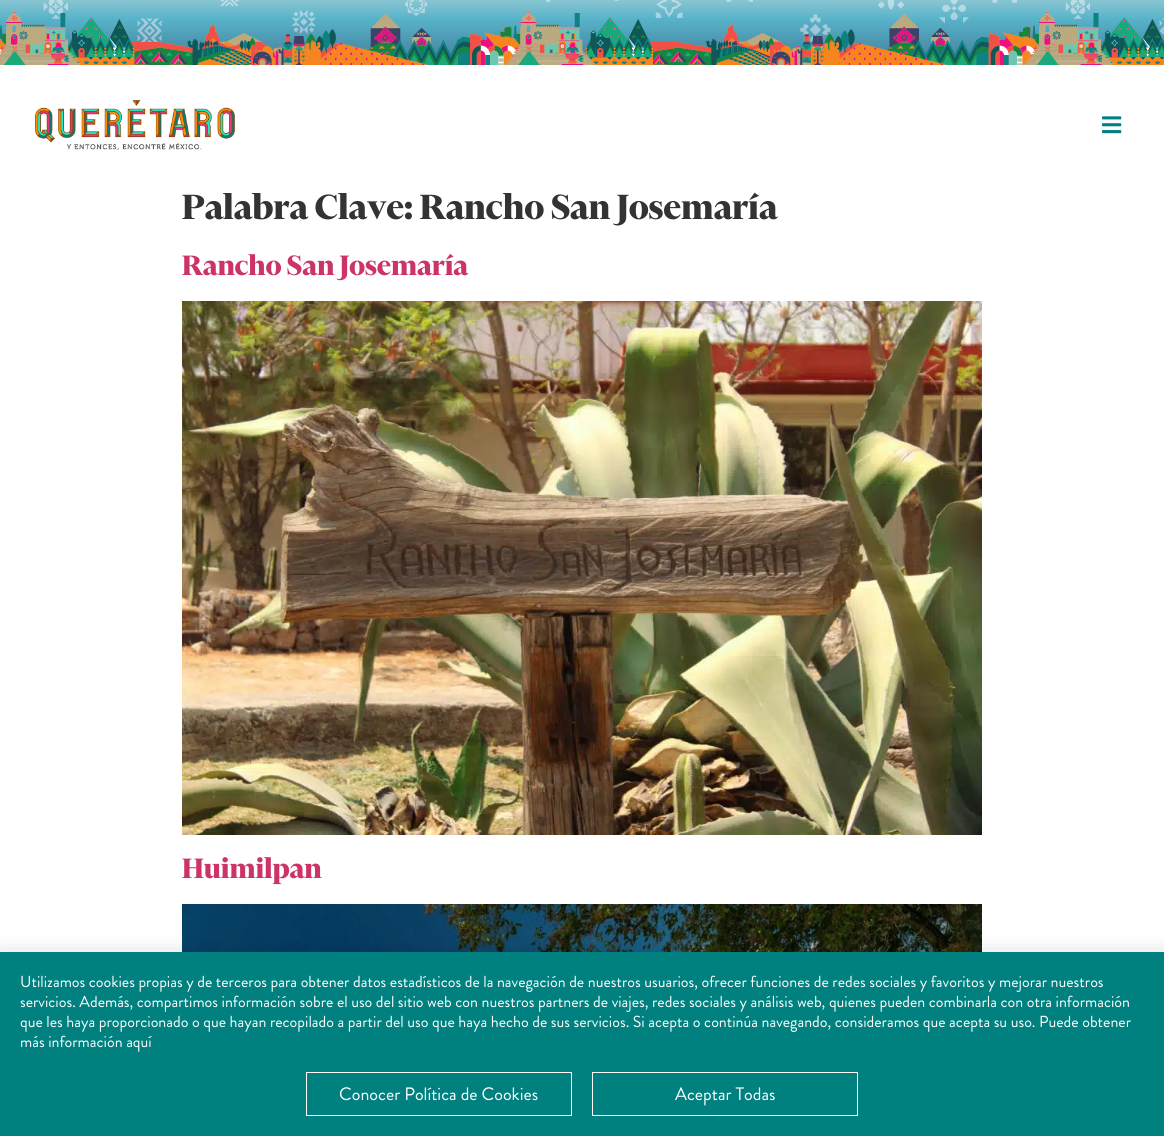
#include <cairo.h>
#include <math.h>
#include <stddef.h>


static void rgb(cairo_t *cr, int r, int g, int b)
{
	cairo_set_source_rgb(cr, r / 255.0, g / 255.0, b / 255.0);
}

static void face(cairo_t *cr, const char *family, double size, int italic, int bold)
{
	cairo_select_font_face(cr, family, italic ? CAIRO_FONT_SLANT_ITALIC : CAIRO_FONT_SLANT_NORMAL,
		bold ? CAIRO_FONT_WEIGHT_BOLD : CAIRO_FONT_WEIGHT_NORMAL);
	cairo_set_font_size(cr, size);
}

static void label(cairo_t *cr, double x, double y, const char *s)
{
	cairo_move_to(cr, x, y);
	cairo_show_text(cr, s);
}

static void rect(cairo_t *cr, double x, double y, double w, double h)
{
	cairo_rectangle(cr, x, y, w, h);
	cairo_fill(cr);
}

static void rrect(cairo_t *cr, double x, double y, double w, double h, double r)
{
	cairo_new_sub_path(cr);
	cairo_arc(cr, x + w - r, y + h - r, r, 0, M_PI / 2);
	cairo_arc(cr, x + r, y + h - r, r, M_PI / 2, M_PI);
	cairo_arc(cr, x + r, y + r, r, M_PI, 1.5 * M_PI);
	cairo_arc(cr, x + w - r, y + r, r, 1.5 * M_PI, 2 * M_PI);
	cairo_close_path(cr);
}

static void soft_shadow(cairo_t *cr, double x, double y, double w, double h, double r, double blur, double alpha)
{
	cairo_push_group_with_content(cr, CAIRO_CONTENT_ALPHA);
	cairo_set_operator(cr, CAIRO_OPERATOR_SOURCE);
	for (int i = 15; i >= -15 && fmin(w, h) + blur * i / 3 > 0; i -= 2) {
		double e = blur * i / 6;
		cairo_set_source_rgba(cr, 0, 0, 0, alpha * erfc((i - 1) / 8.5) / 2);
		rrect(cr, x - e, y - e, w + 2 * e, h + 2 * e, fmax(0, fmin(r + e + blur * .6, fmin(w, h) / 2 + e)));
		cairo_fill(cr);
	}
	cairo_pattern_t *soft = cairo_pop_group(cr);
	cairo_mask(cr, soft);
	cairo_pattern_destroy(soft);
}

static void image(cairo_t *cr, const char *path, double x, double y, double w, double h)
{
	cairo_surface_t *image = cairo_image_surface_create_from_png(path);
	cairo_save(cr);
	cairo_set_source_surface(cr, image, x, y);
	cairo_rectangle(cr, x, y, w, h);
	cairo_fill(cr);
	cairo_restore(cr);
	cairo_surface_destroy(image);
}

static void draw(cairo_t *cr) {
	rgb(cr, 255, 255, 255);
	cairo_paint(cr);
	image(cr, "image0.png", 0, 0, 1164, 65);
	image(cr, "image1.png", 35, 100, 200, 50);
	image(cr, "image2.png", 1102, 116, 20, 18);
	face(cr, "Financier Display", 40, 0, 1);
	rgb(cr, 51, 51, 51);
	label(cr, 182, 219, "Palabra Clave: Rancho San Josemaría");
	face(cr, "Financier Display", 32, 0, 1);
	rgb(cr, 204, 51, 102);
	label(cr, 182, 275, "Rancho San Josemaría");
	image(cr, "image3.png", 182, 301, 800, 534);
	label(cr, 182, 878, "Huimilpan");
	image(cr, "image4.png", 182, 904, 800, 48);
	rgb(cr, 0, 0, 0);
	soft_shadow(cr, -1, 957, 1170, 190, 0, 11.5, 0.2);
	rgb(cr, 0, 129, 128);
	rect(cr, 0, 952, 1164, 184);
	face(cr, "Brandon Grotesque", 16, 0, 0);
	rgb(cr, 255, 255, 255);
	label(cr, 20, 987, "Utilizamos cookies propias y de terceros para obtener datos estadísticos de la navegación de nuestros usuarios, ofrecer funciones de redes sociales y favoritos y mejorar nuestros");
	label(cr, 20, 1007, "servicios. Además, compartimos información sobre el uso del sitio web con nuestros partners de viajes, redes sociales y análisis web, quienes pueden combinarla con otra información");
	label(cr, 20, 1027, "que les haya proporcionado o que hayan recopilado a partir del uso que haya hecho de sus servicios. Si acepta o continúa navegando, consideramos que acepta su uso. Puede obtener");
	label(cr, 20, 1047, "más información aquí");
	cairo_rectangle(cr, 306.5, 1072.5, 265, 43);
	cairo_set_line_width(cr, 1);
	cairo_stroke(cr);
	face(cr, "Brandon Grotesque", 18, 0, 0);
	label(cr, 339, 1100, "Conocer Política de Cookies");
	cairo_rectangle(cr, 592.5, 1072.5, 265, 43);
	cairo_stroke(cr);
	label(cr, 675, 1100, "Aceptar Todas");
}

int main(void) {
	cairo_surface_t *surface = cairo_image_surface_create(CAIRO_FORMAT_RGB24, 1164, 1136);
	cairo_t *cr = cairo_create(surface);
	cairo_font_options_t *options = cairo_font_options_create();
	cairo_font_options_set_hint_metrics(options, CAIRO_HINT_METRICS_OFF);
	cairo_font_options_set_hint_style(options, CAIRO_HINT_STYLE_NONE);
	cairo_set_font_options(cr, options);
	cairo_set_miter_limit(cr, 4);
	draw(cr);
	cairo_surface_write_to_png(surface, "render.png");
	cairo_font_options_destroy(options);
	cairo_destroy(cr);
	cairo_surface_destroy(surface);
	return 0;
}
